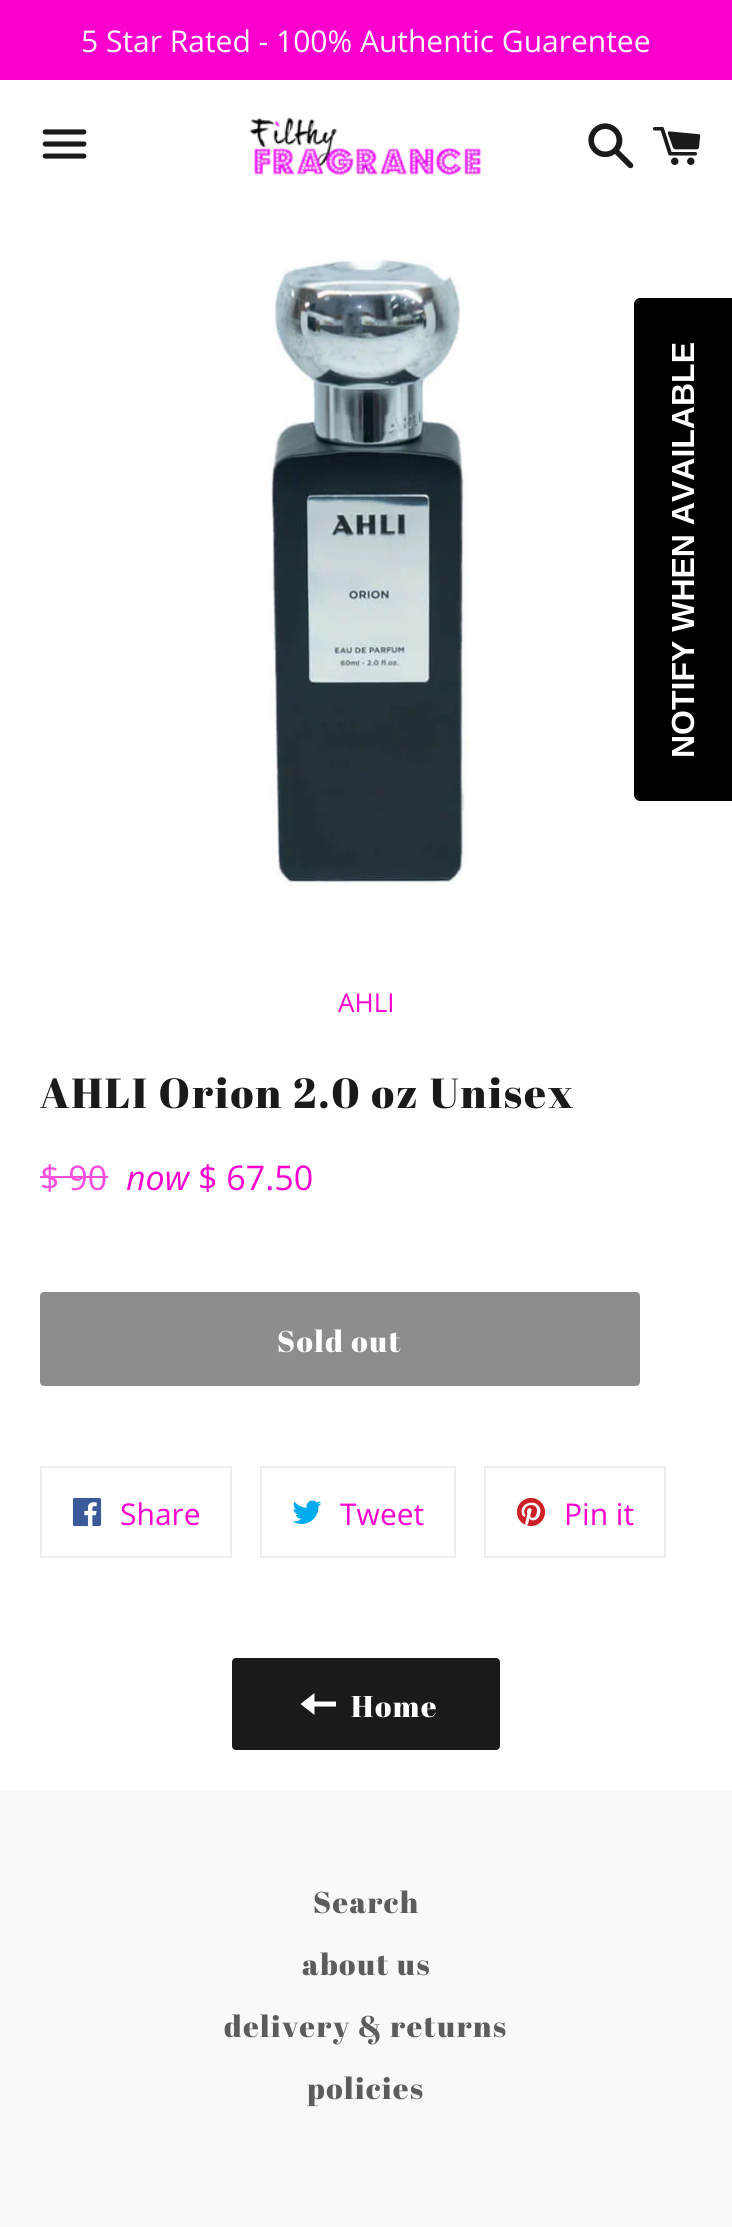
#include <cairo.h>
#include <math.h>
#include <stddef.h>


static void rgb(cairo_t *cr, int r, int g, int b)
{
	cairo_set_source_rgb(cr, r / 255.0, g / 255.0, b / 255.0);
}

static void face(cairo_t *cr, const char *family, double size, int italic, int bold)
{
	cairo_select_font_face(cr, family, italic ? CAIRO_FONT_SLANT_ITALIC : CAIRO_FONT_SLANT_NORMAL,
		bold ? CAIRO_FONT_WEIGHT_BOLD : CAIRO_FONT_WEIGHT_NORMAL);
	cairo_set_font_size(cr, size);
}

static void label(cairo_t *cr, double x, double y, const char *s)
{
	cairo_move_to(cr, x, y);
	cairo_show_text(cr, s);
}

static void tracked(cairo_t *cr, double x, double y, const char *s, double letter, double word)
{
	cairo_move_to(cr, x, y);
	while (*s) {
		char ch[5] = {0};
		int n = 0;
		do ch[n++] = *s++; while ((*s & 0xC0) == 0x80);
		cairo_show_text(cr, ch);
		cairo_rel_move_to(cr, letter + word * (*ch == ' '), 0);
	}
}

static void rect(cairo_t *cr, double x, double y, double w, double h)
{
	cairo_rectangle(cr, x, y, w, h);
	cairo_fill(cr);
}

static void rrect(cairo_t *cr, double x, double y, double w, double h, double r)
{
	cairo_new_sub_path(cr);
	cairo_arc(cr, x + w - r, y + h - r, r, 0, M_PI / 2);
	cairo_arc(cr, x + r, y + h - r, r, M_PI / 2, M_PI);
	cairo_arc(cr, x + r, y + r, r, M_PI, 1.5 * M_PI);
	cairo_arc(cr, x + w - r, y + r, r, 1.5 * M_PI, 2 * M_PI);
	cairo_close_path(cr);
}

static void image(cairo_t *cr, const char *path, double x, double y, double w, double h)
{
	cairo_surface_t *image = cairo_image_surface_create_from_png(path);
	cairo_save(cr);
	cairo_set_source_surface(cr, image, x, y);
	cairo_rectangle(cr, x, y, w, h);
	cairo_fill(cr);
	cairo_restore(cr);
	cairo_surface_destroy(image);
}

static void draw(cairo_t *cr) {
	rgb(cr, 255, 255, 255);
	cairo_paint(cr);
	rgb(cr, 252, 0, 206);
	rect(cr, 0, 0, 732, 80);
	face(cr, "Open Sans", 30, 0, 0);
	rgb(cr, 255, 255, 255);
	label(cr, 81, 52, "5 Star Rated - 100% Authentic Guarentee");
	image(cr, "image0.png", 42, 129, 45, 30);
	image(cr, "image1.png", 250, 117, 231, 58);
	image(cr, "image2.png", 588, 123, 46, 46);
	image(cr, "image3.png", 652, 127, 49, 38);
	image(cr, "image4.png", 269, 259, 201, 626);
	face(cr, "Open Sans", 26, 0, 0);
	rgb(cr, 252, 0, 206);
	label(cr, 338, 1012, "AHLI");
	face(cr, "Abril Fatface", 42, 0, 0);
	rgb(cr, 26, 26, 26);
	tracked(cr, 40, 1108, "AHLI Orion 2.0 oz Unisex", 2.1, 0);
	face(cr, "Open Sans", 34, 0, 0);
	rgb(cr, 253, 77, 221);
	label(cr, 40, 1190, "$ 90");
	rect(cr, 40, 1176, 68, 2);
	face(cr, "Open Sans", 34, 1, 0);
	rgb(cr, 252, 0, 206);
	label(cr, 126, 1190, "now");
	face(cr, "Open Sans", 34, 0, 0);
	label(cr, 198, 1190, "$ 67.50");
	rgb(cr, 141, 141, 141);
	rrect(cr, 42, 1294, 596, 90, 2);
	cairo_fill_preserve(cr);
	cairo_set_line_width(cr, 4);
	cairo_stroke(cr);
	face(cr, "Abril Fatface", 30, 0, 0);
	rgb(cr, 255, 255, 255);
	tracked(cr, 277, 1352, "Sold out", 1.5, 0);
	cairo_rectangle(cr, 41, 1467, 190, 90);
	rgb(cr, 238, 238, 238);
	cairo_set_line_width(cr, 2);
	cairo_stroke(cr);
	image(cr, "image5.png", 72, 1497, 30, 30);
	face(cr, "Open Sans", 30, 0, 0);
	rgb(cr, 252, 0, 206);
	label(cr, 120, 1525, "Share");
	cairo_rectangle(cr, 261, 1467, 194, 90);
	rgb(cr, 238, 238, 238);
	cairo_stroke(cr);
	image(cr, "image6.png", 292, 1500, 30, 24);
	rgb(cr, 252, 0, 206);
	label(cr, 340, 1525, "Tweet");
	cairo_rectangle(cr, 485, 1467, 180, 90);
	rgb(cr, 238, 238, 238);
	cairo_stroke(cr);
	image(cr, "image7.png", 516, 1498, 30, 28);
	rgb(cr, 252, 0, 206);
	label(cr, 564, 1525, "Pin it");
	rgb(cr, 26, 26, 26);
	rrect(cr, 232, 1658, 268, 92, 4);
	cairo_fill(cr);
	rgb(cr, 255, 255, 255);
	cairo_new_path(cr);
	cairo_move_to(cr, 314.5, 1701.5);
	cairo_line_to(cr, 314.5, 1693);
	cairo_line_to(cr, 300.5, 1704);
	cairo_line_to(cr, 314.5, 1715);
	cairo_line_to(cr, 314.5, 1706.5);
	cairo_line_to(cr, 336, 1706.5);
	cairo_line_to(cr, 336, 1701.5);
	cairo_close_path(cr);
	cairo_fill(cr);
	face(cr, "Abril Fatface", 30, 0, 0);
	tracked(cr, 351, 1717, "Home", 1.5, 0);
	rgb(cr, 0, 0, 0);
	cairo_new_path(cr);
	cairo_move_to(cr, 636, 795);
	cairo_line_to(cr, 636, 304);
	cairo_curve_to(cr, 636, 302, 638, 300, 640, 300);
	cairo_line_to(cr, 732, 300);
	cairo_line_to(cr, 732, 799);
	cairo_line_to(cr, 640, 799);
	cairo_curve_to(cr, 638, 799, 636, 797, 636, 795);
	cairo_close_path(cr);
	cairo_fill(cr);
	cairo_set_fill_rule(cr, CAIRO_FILL_RULE_EVEN_ODD);
	cairo_new_path(cr);
	cairo_move_to(cr, 634, 795);
	cairo_line_to(cr, 634, 304);
	cairo_curve_to(cr, 634, 301, 637, 298, 640, 298);
	cairo_line_to(cr, 732, 298);
	cairo_line_to(cr, 732, 801);
	cairo_line_to(cr, 640, 801);
	cairo_curve_to(cr, 637, 801, 634, 798, 634, 795);
	cairo_close_path(cr);
	cairo_move_to(cr, 636, 795);
	cairo_line_to(cr, 636, 304);
	cairo_curve_to(cr, 636, 302, 638, 300, 640, 300);
	cairo_line_to(cr, 732, 300);
	cairo_line_to(cr, 732, 799);
	cairo_line_to(cr, 640, 799);
	cairo_curve_to(cr, 638, 799, 636, 797, 636, 795);
	cairo_close_path(cr);
	cairo_fill(cr);
	face(cr, "Liberation Sans", 32, 0, 1);
	rgb(cr, 255, 255, 255);
	cairo_save(cr);
	cairo_translate(cr, 694, 758);
	cairo_rotate(cr, -90 * M_PI / 180);
	label(cr, 0, 0, "NOTIFY WHEN AVAILABLE");
	cairo_restore(cr);
	rgb(cr, 249, 249, 249);
	rect(cr, 0, 1790, 732, 437);
	face(cr, "Abril Fatface", 30, 0, 0);
	rgb(cr, 92, 92, 92);
	tracked(cr, 313, 1913, "Search", 1.5, 0);
	tracked(cr, 302, 1975, "about us", 1.5, 0);
	tracked(cr, 224, 2037, "delivery & returns", 1.5, 0);
	tracked(cr, 307, 2099, "policies", 1.5, 0);
}

int main(void) {
	cairo_surface_t *surface = cairo_image_surface_create(CAIRO_FORMAT_RGB24, 732, 2227);
	cairo_t *cr = cairo_create(surface);
	cairo_font_options_t *options = cairo_font_options_create();
	cairo_font_options_set_hint_metrics(options, CAIRO_HINT_METRICS_OFF);
	cairo_font_options_set_hint_style(options, CAIRO_HINT_STYLE_NONE);
	cairo_set_font_options(cr, options);
	cairo_set_miter_limit(cr, 4);
	draw(cr);
	cairo_surface_write_to_png(surface, "render.png");
	cairo_font_options_destroy(options);
	cairo_destroy(cr);
	cairo_surface_destroy(surface);
	return 0;
}
